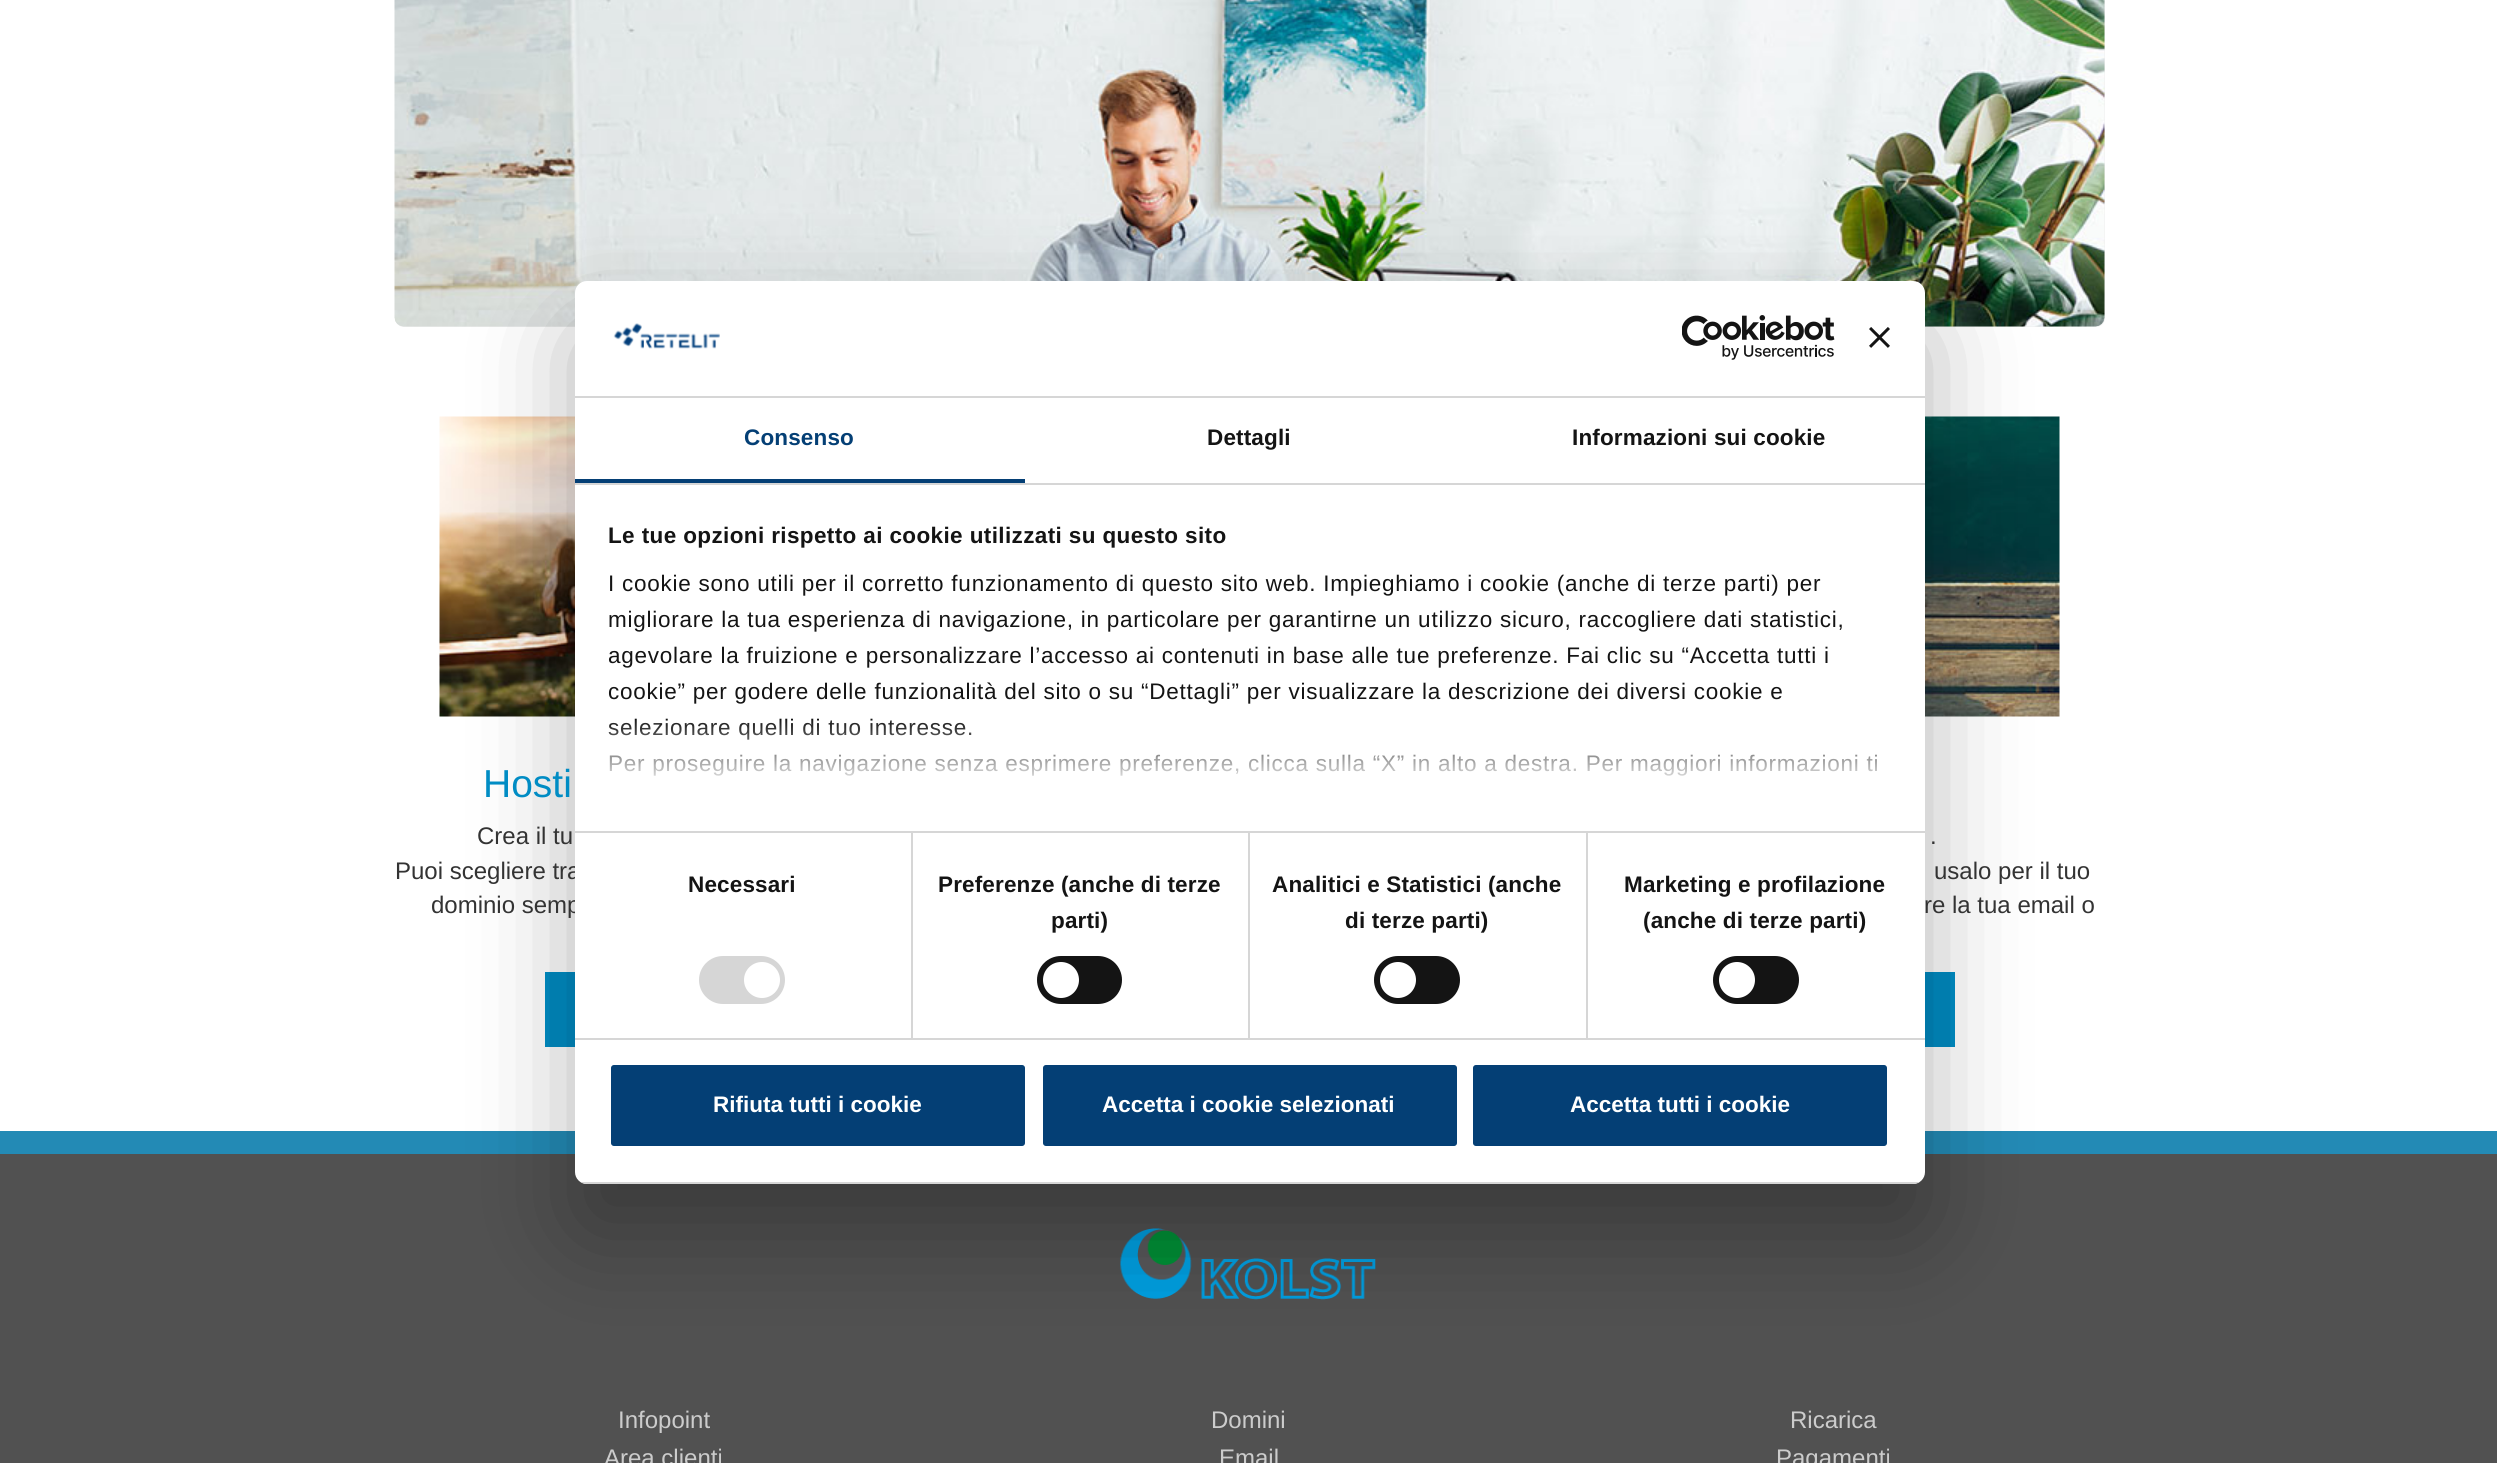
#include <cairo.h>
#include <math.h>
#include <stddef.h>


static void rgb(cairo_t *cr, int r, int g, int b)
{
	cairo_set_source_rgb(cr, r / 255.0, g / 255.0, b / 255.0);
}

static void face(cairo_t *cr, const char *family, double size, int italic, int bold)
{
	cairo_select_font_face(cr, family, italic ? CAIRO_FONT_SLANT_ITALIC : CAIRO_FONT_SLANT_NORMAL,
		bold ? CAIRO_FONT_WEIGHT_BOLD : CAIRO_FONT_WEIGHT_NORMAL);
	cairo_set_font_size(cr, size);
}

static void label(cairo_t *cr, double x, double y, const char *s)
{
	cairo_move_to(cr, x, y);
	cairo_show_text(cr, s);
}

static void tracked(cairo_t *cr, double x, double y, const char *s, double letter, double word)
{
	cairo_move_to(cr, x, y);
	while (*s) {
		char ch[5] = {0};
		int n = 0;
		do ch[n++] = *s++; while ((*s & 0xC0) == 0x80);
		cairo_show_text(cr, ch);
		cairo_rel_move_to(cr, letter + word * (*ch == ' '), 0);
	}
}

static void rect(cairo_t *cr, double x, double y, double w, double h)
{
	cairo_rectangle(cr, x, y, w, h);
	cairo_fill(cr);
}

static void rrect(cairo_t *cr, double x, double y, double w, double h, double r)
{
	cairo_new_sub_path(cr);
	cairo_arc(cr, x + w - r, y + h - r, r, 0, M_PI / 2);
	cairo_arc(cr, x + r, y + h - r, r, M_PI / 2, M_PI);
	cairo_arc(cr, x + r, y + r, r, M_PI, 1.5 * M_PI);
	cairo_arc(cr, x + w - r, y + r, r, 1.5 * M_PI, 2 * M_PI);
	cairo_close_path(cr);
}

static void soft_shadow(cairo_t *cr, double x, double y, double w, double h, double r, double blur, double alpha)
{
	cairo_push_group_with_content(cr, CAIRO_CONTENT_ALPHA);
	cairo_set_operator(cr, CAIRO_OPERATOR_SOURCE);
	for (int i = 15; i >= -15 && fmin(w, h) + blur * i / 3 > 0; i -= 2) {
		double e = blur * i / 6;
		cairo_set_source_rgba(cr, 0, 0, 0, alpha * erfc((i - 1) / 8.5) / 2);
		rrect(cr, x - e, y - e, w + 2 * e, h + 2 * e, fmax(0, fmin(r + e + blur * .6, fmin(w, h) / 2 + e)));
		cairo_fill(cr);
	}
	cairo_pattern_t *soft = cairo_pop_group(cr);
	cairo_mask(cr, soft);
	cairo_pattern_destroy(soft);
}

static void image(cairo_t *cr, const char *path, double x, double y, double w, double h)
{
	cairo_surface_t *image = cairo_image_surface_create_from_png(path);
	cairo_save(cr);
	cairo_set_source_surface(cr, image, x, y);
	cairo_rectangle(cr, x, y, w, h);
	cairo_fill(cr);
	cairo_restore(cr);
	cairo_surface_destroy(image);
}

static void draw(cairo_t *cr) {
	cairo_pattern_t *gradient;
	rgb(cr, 255, 255, 255);
	cairo_paint(cr);
	rgb(cr, 238, 238, 238);
	rrect(cr, 395, -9, 1710, 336, 9);
	cairo_fill(cr);
	image(cr, "image3.png", 394, 0, 1711, 327);
	image(cr, "image4.png", 439, 416, 136, 301);
	rgb(cr, 0, 140, 196);
	rect(cr, 545, 972, 30, 75);
	image(cr, "image5.png", 1925, 416, 135, 301);
	rect(cr, 1925, 972, 30, 75);
	rgb(cr, 81, 81, 81);
	rect(cr, 0, 1154, 2497, 309);
	rgb(cr, 35, 138, 181);
	rect(cr, 0, 1131, 2497, 23);
	image(cr, "image6.png", 1120, 1228, 256, 72);
	rgb(cr, 0, 0, 0);
	soft_shadow(cr, 575, 329, 1350, 903, 12, 51, 0.3);
	face(cr, "Liberation Sans", 24, 0, 0);
	rgb(cr, 51, 51, 51);
	label(cr, 395, 879, "Puoi scegliere tra");
	label(cr, 431, 913, "dominio semp");
	rgb(cr, 255, 255, 255);
	rrect(cr, 575, 281, 1350, 903, 12);
	cairo_fill(cr);
	rgb(cr, 214, 214, 214);
	rect(cr, 575, 396, 1350, 2);
	image(cr, "image0.png", 613, 323, 107, 26);
	image(cr, "image1.png", 1682, 315, 153, 45);
	image(cr, "image2.png", 1869, 327, 21, 21);
	rect(cr, 575, 483, 1350, 2);
	rgb(cr, 4, 63, 117);
	rect(cr, 575, 479, 450, 4);
	face(cr, "Liberation Sans", 22.5, 0, 1);
	tracked(cr, 744, 445, "Consenso", 0.15, 0);
	rgb(cr, 20, 20, 20);
	tracked(cr, 1207, 445, "Dettagli", 0.15, 0);
	tracked(cr, 1572, 445, "Informazioni sui cookie", 0.15, 0);
	rgb(cr, 214, 214, 214);
	rect(cr, 575, 831, 1350, 2);
	rgb(cr, 20, 20, 20);
	tracked(cr, 608, 543, "Le tue opzioni rispetto ai cookie utilizzati su questo sito", 0.38, 0);
	face(cr, "Liberation Sans", 22.5, 0, 0);
	tracked(cr, 608, 591, "I cookie sono utili per il corretto funzionamento di questo sito web. Impieghiamo i cookie (anche di terze parti) per", 0.75, 0);
	tracked(cr, 608, 627, "migliorare la tua esperienza di navigazione, in particolare per garantirne un utilizzo sicuro, raccogliere dati statistici,", 0.75, 0);
	tracked(cr, 608, 663, "agevolare la fruizione e personalizzare l’accesso ai contenuti in base alle tue preferenze. Fai clic su “Accetta tutti i", 0.75, 0);
	tracked(cr, 608, 699, "cookie” per godere delle funzionalità del sito o su “Dettagli” per visualizzare la descrizione dei diversi cookie e", 0.75, 0);
	tracked(cr, 608, 735, "selezionare quelli di tuo interesse.", 0.75, 0);
	tracked(cr, 608, 771, "Per proseguire la navigazione senza esprimere preferenze, clicca sulla “X” in alto a destra. Per maggiori informazioni ti", 0.75, 0);
	gradient = cairo_pattern_create_linear(1234, 831, 1234, 718);
	cairo_pattern_add_color_stop_rgba(gradient, 0, 1, 1, 1, 1);
	cairo_pattern_add_color_stop_rgba(gradient, 0.5, 1, 1, 1, 0.8);
	cairo_pattern_add_color_stop_rgba(gradient, 1, 1, 1, 1, 0);
	cairo_set_source(cr, gradient);
	cairo_pattern_destroy(gradient);
	rect(cr, 608, 720, 1269, 56);
	rgb(cr, 214, 214, 214);
	rect(cr, 575, 1038, 1350, 2);
	rect(cr, 911, 833, 2, 205);
	face(cr, "Liberation Sans", 22.5, 0, 1);
	rgb(cr, 20, 20, 20);
	tracked(cr, 688, 892, "Necessari", 0.15, 0);
	rgb(cr, 214, 214, 214);
	rrect(cr, 699, 956, 86, 48, 24);
	cairo_fill(cr);
	rgb(cr, 255, 255, 255);
	cairo_arc(cr, 762, 980, 18, 0, 2 * M_PI);
	cairo_fill(cr);
	rgb(cr, 214, 214, 214);
	rect(cr, 1248, 833, 2, 205);
	rgb(cr, 20, 20, 20);
	tracked(cr, 938, 892, "Preferenze (anche di terze", 0.15, 0);
	tracked(cr, 1051, 928, "parti)", 0.15, 0);
	rrect(cr, 1037, 956, 85, 48, 24);
	cairo_fill(cr);
	rgb(cr, 255, 255, 255);
	cairo_arc(cr, 1061, 980, 18, 0, 2 * M_PI);
	cairo_fill(cr);
	rgb(cr, 214, 214, 214);
	rect(cr, 1586, 833, 2, 205);
	rgb(cr, 20, 20, 20);
	tracked(cr, 1272, 892, "Analitici e Statistici (anche", 0.15, 0);
	tracked(cr, 1345, 928, "di terze parti)", 0.15, 0);
	rrect(cr, 1374, 956, 86, 48, 24);
	cairo_fill(cr);
	rgb(cr, 255, 255, 255);
	cairo_arc(cr, 1398, 980, 18, 0, 2 * M_PI);
	cairo_fill(cr);
	rgb(cr, 20, 20, 20);
	tracked(cr, 1624, 892, "Marketing e profilazione", 0.15, 0);
	tracked(cr, 1643, 928, "(anche di terze parti)", 0.15, 0);
	rrect(cr, 1713, 956, 86, 48, 24);
	cairo_fill(cr);
	rgb(cr, 255, 255, 255);
	cairo_arc(cr, 1737, 980, 18, 0, 2 * M_PI);
	cairo_fill(cr);
	cairo_save(cr);
	rrect(cr, 575, 281, 1350, 903, 12);
	cairo_clip(cr);
	rgb(cr, 214, 214, 214);
	rect(cr, 575, 1182, 1350, 2);
	cairo_restore(cr);
	rgb(cr, 4, 63, 117);
	rrect(cr, 609.5, 1063.5, 417, 84, 4.5);
	cairo_fill_preserve(cr);
	rgb(cr, 255, 255, 255);
	cairo_set_line_width(cr, 3);
	cairo_stroke(cr);
	label(cr, 713, 1112, "Rifiuta tutti i cookie");
	rgb(cr, 4, 63, 117);
	rrect(cr, 1041.5, 1063.5, 417, 84, 4.5);
	cairo_fill_preserve(cr);
	rgb(cr, 255, 255, 255);
	cairo_stroke(cr);
	label(cr, 1102, 1112, "Accetta i cookie selezionati");
	rgb(cr, 4, 63, 117);
	rrect(cr, 1471.5, 1063.5, 417, 84, 4.5);
	cairo_fill_preserve(cr);
	rgb(cr, 255, 255, 255);
	cairo_stroke(cr);
	label(cr, 1570, 1112, "Accetta tutti i cookie");
	face(cr, "Liberation Sans", 39, 0, 0);
	rgb(cr, 0, 140, 196);
	label(cr, 483, 797, "Hosti");
	face(cr, "Liberation Sans", 24, 0, 0);
	rgb(cr, 51, 51, 51);
	label(cr, 477, 844, "Crea il tu");
	label(cr, 1930, 844, ".");
	label(cr, 1934, 879, "usalo per il tuo");
	label(cr, 1924, 913, "re la tua email o");
	rgb(cr, 204, 204, 204);
	label(cr, 618, 1428, "Infopoint");
	label(cr, 604, 1466, "Area clienti");
	label(cr, 1211, 1428, "Domini");
	label(cr, 1219, 1466, "Email");
	label(cr, 1790, 1428, "Ricarica");
	label(cr, 1776, 1466, "Pagamenti");
}

int main(void) {
	cairo_surface_t *surface = cairo_image_surface_create(CAIRO_FORMAT_RGB24, 2497, 1463);
	cairo_t *cr = cairo_create(surface);
	cairo_font_options_t *options = cairo_font_options_create();
	cairo_font_options_set_hint_metrics(options, CAIRO_HINT_METRICS_OFF);
	cairo_font_options_set_hint_style(options, CAIRO_HINT_STYLE_NONE);
	cairo_set_font_options(cr, options);
	cairo_set_miter_limit(cr, 4);
	draw(cr);
	cairo_surface_write_to_png(surface, "render.png");
	cairo_font_options_destroy(options);
	cairo_destroy(cr);
	cairo_surface_destroy(surface);
	return 0;
}
